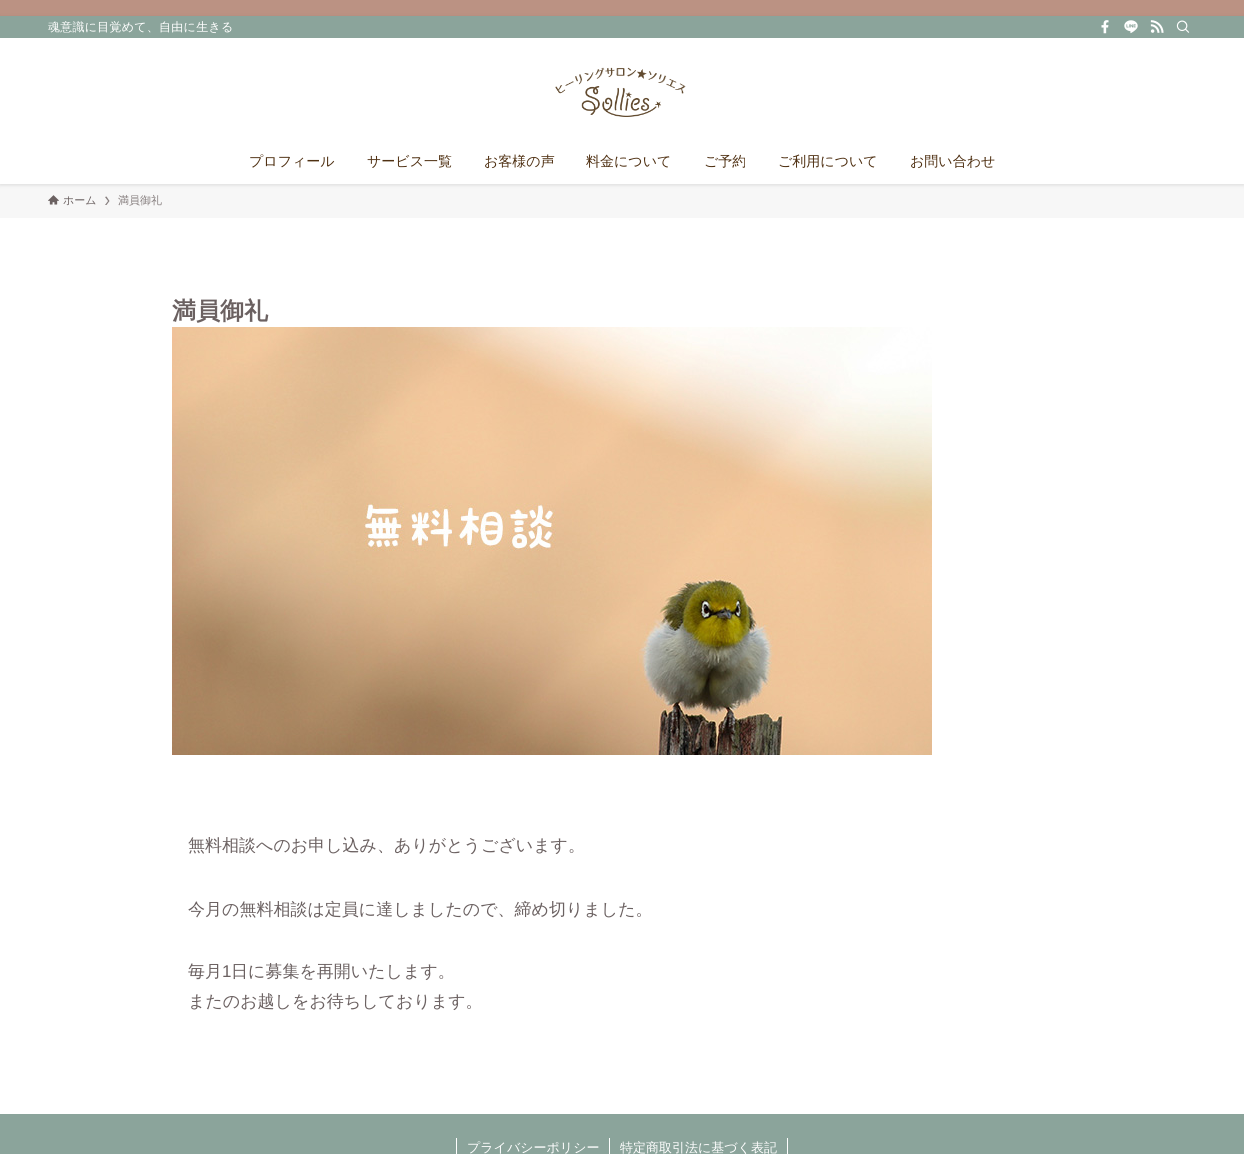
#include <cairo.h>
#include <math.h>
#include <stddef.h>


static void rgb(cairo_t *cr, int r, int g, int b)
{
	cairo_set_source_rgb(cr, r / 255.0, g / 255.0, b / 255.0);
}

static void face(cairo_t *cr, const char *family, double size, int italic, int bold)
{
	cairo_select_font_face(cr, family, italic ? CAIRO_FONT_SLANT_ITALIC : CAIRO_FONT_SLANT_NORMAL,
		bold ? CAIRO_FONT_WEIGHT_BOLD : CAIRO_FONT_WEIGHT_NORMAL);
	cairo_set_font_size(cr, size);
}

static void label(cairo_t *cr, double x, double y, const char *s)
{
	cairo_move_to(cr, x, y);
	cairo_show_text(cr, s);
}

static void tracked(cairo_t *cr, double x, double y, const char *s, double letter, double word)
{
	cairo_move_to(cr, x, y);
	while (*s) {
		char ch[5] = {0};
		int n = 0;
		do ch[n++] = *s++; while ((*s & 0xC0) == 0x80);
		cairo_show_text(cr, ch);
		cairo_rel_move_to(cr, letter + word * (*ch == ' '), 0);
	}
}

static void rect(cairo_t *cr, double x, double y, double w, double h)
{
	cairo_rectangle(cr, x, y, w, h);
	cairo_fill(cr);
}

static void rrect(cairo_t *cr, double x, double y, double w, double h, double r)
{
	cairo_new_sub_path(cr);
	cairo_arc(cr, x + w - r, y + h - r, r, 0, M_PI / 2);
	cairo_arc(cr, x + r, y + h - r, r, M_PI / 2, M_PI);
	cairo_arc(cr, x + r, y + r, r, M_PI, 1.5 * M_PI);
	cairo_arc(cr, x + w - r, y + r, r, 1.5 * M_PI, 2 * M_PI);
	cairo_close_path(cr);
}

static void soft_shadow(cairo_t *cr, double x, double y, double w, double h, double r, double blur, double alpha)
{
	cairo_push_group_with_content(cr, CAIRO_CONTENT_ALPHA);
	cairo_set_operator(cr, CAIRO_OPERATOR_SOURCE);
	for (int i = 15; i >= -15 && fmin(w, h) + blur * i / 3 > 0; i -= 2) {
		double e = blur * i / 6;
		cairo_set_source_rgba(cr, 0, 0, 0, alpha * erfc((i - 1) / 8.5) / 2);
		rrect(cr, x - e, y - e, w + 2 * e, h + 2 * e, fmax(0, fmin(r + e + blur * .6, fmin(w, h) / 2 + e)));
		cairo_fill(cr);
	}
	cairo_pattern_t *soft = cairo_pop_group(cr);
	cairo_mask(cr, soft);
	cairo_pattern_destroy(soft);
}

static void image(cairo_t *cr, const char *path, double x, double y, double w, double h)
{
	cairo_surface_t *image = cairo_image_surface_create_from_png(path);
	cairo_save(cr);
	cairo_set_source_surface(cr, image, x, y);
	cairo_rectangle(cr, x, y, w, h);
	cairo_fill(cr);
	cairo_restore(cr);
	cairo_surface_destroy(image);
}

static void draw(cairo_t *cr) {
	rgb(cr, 255, 255, 255);
	cairo_paint(cr);
	rgb(cr, 187, 146, 131);
	rect(cr, 0, 0, 1244, 16);
	rgb(cr, 247, 247, 247);
	rect(cr, 0, 184, 1244, 34);
	cairo_save(cr);
	cairo_set_fill_rule(cr, CAIRO_FILL_RULE_EVEN_ODD);
	cairo_new_path(cr);
	cairo_move_to(cr, 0, 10);
	cairo_line_to(cr, 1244, 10);
	cairo_line_to(cr, 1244, 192);
	cairo_line_to(cr, 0, 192);
	cairo_close_path(cr);
	cairo_move_to(cr, 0, 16);
	cairo_line_to(cr, 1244, 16);
	cairo_line_to(cr, 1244, 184);
	cairo_line_to(cr, 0, 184);
	cairo_close_path(cr);
	cairo_clip(cr);
	rgb(cr, 0, 0, 0);
	soft_shadow(cr, 0, 17, 1244, 168, 0, 2, 0.12);
	cairo_restore(cr);
	rgb(cr, 139, 164, 155);
	rect(cr, 0, 16, 1244, 22);
	face(cr, "WenQuanYi Zen Hei Medium", 12, 0, 0);
	rgb(cr, 255, 255, 255);
	tracked(cr, 48, 31, "魂意識に目覚めて、自由に生きる", 0.25, 0);
	image(cr, "image0.png", 1101, 20, 8, 14);
	image(cr, "image1.png", 1124, 20, 14, 14);
	image(cr, "image2.png", 1150, 20, 14, 13);
	image(cr, "image3.png", 1176, 20, 14, 13);
	image(cr, "image4.png", 555, 67, 131, 50);
	face(cr, "WenQuanYi Zen Hei Medium", 14, 0, 0);
	rgb(cr, 79, 48, 18);
	label(cr, 249, 166, "プロフィール");
	label(cr, 367, 166, "サービス一覧");
	label(cr, 484, 166, "お客様の声");
	label(cr, 586, 166, "料金について");
	label(cr, 704, 166, "ご予約");
	label(cr, 778, 166, "ご利用について");
	label(cr, 910, 166, "お問い合わせ");
	image(cr, "image5.png", 48, 195, 11, 10);
	face(cr, "WenQuanYi Zen Hei Medium", 11, 0, 0);
	rgb(cr, 107, 97, 97);
	label(cr, 63, 204, "ホーム");
	rgb(cr, 135, 127, 127);
	cairo_new_path(cr);
	cairo_move_to(cr, 106.5, 196.5);
	cairo_line_to(cr, 105, 197);
	cairo_line_to(cr, 108, 201);
	cairo_line_to(cr, 105, 205);
	cairo_line_to(cr, 106.5, 205);
	cairo_line_to(cr, 109.5, 201);
	cairo_close_path(cr);
	cairo_fill(cr);
	label(cr, 118, 204, "満員御礼");
	face(cr, "WenQuanYi Zen Hei", 24, 0, 1);
	rgb(cr, 107, 97, 97);
	label(cr, 172, 319, "満員御礼");
	image(cr, "image6.png", 172, 327, 760, 428);
	face(cr, "WenQuanYi Zen Hei Medium", 17, 0, 0);
	label(cr, 188, 851, "無料相談へのお申し込み、ありがとうございます。");
	label(cr, 188, 915, "今月の無料相談は定員に達しましたので、締め切りました。");
	label(cr, 188, 977, "毎月");
	face(cr, "Liberation Sans", 17, 0, 0);
	label(cr, 222, 977, "1");
	face(cr, "WenQuanYi Zen Hei Medium", 17, 0, 0);
	label(cr, 231, 977, "日に募集を再開いたします。");
	label(cr, 188, 1007, "またのお越しをお待ちしております。");
	rgb(cr, 139, 164, 155);
	rect(cr, 0, 1114, 1244, 40);
	rgb(cr, 255, 255, 255);
	rect(cr, 609, 1138, 1, 16);
	rect(cr, 456, 1138, 1, 16);
	face(cr, "WenQuanYi Zen Hei Medium", 13, 0, 0);
	label(cr, 467, 1152, "プライバシーポリシー");
	rect(cr, 787, 1138, 1, 16);
	label(cr, 620, 1152, "特定商取引法に基づく表記");
}

int main(void) {
	cairo_surface_t *surface = cairo_image_surface_create(CAIRO_FORMAT_RGB24, 1244, 1154);
	cairo_t *cr = cairo_create(surface);
	cairo_font_options_t *options = cairo_font_options_create();
	cairo_font_options_set_hint_metrics(options, CAIRO_HINT_METRICS_OFF);
	cairo_font_options_set_hint_style(options, CAIRO_HINT_STYLE_NONE);
	cairo_set_font_options(cr, options);
	cairo_set_miter_limit(cr, 4);
	draw(cr);
	cairo_surface_write_to_png(surface, "render.png");
	cairo_font_options_destroy(options);
	cairo_destroy(cr);
	cairo_surface_destroy(surface);
	return 0;
}
